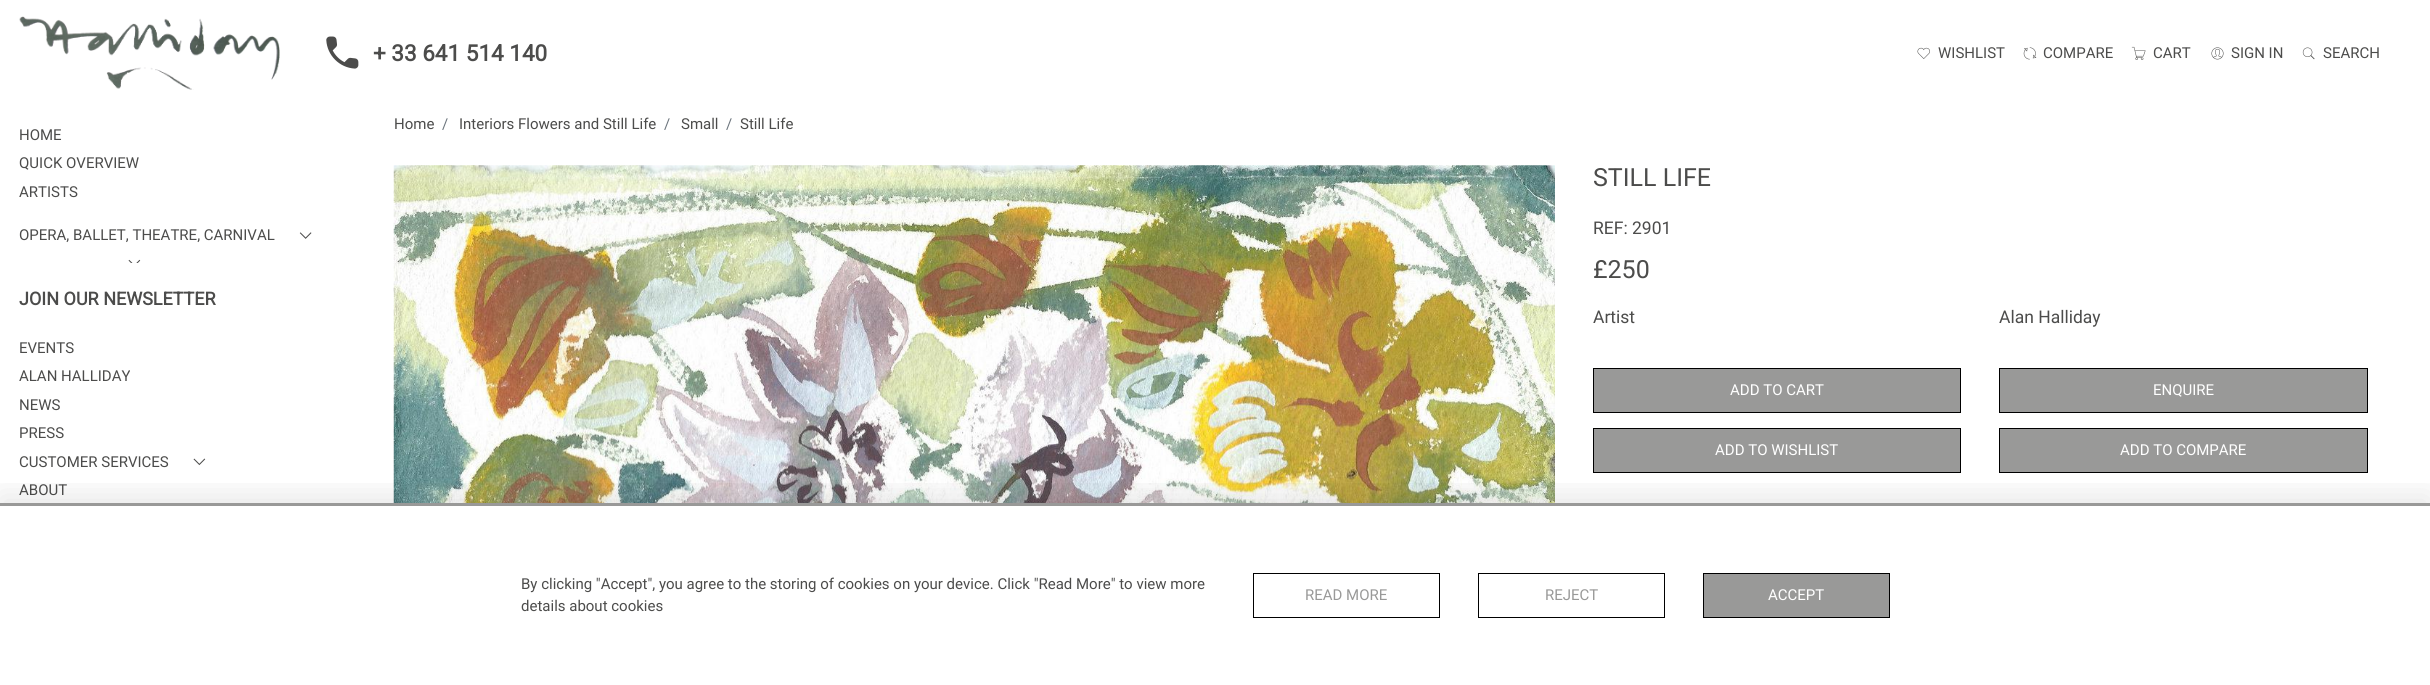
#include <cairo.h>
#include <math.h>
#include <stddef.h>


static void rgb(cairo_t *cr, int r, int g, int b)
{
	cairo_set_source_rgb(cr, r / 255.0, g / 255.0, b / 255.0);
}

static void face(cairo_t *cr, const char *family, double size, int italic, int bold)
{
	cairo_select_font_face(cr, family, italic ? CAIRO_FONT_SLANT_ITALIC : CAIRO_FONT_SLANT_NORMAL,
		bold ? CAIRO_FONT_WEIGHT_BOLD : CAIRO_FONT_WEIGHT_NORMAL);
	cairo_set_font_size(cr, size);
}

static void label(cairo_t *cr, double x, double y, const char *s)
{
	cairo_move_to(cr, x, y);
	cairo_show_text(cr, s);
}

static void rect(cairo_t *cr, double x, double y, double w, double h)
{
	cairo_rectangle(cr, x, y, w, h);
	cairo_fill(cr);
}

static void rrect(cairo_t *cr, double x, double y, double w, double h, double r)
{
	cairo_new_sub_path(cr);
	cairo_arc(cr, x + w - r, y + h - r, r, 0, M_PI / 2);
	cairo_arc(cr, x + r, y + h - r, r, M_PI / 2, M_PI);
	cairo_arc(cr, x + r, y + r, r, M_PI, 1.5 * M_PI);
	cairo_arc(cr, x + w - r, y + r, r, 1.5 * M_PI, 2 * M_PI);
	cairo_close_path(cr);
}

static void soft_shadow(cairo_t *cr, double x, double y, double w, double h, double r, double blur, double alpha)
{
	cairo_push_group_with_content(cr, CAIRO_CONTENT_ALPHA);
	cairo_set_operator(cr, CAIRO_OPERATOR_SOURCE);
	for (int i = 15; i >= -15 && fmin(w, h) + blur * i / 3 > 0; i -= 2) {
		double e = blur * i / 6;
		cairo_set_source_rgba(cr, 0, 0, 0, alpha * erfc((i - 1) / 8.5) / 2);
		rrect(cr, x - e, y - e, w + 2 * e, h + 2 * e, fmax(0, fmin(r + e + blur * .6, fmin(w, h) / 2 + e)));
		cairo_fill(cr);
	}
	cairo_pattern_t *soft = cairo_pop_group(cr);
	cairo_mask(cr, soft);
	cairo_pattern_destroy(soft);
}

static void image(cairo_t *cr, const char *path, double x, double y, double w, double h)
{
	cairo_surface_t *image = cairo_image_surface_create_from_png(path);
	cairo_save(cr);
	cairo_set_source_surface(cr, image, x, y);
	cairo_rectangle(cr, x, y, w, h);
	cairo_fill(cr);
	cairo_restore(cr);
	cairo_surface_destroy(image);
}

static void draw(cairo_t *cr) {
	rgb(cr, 255, 255, 255);
	cairo_paint(cr);
	image(cr, "image0.png", 19, 16, 261, 74);
	image(cr, "image1.png", 326, 36, 33, 33);
	face(cr, "Roboto", 22.5, 0, 1);
	rgb(cr, 76, 76, 75);
	label(cr, 373, 61, "+ 33 641 514 140");
	image(cr, "image2.png", 1917, 47, 13, 12);
	face(cr, "Roboto", 15, 0, 0);
	label(cr, 1938, 58, "WISHLIST");
	image(cr, "image3.png", 2023, 47, 14, 13);
	label(cr, 2043, 58, "COMPARE");
	image(cr, "image4.png", 2131, 46, 15, 14);
	label(cr, 2153, 58, "CART");
	image(cr, "image5.png", 2211, 47, 13, 13);
	label(cr, 2231, 58, "SIGN IN");
	image(cr, "image6.png", 2302, 47, 13, 13);
	label(cr, 2323, 58, "SEARCH");
	label(cr, 19, 140, "HOME");
	label(cr, 19, 168, "QUICK OVERVIEW");
	label(cr, 19, 197, "ARTISTS");
	label(cr, 19, 240, "OPERA, BALLET, THEATRE, CARNIVAL");
	image(cr, "image7.png", 299, 232, 13, 7);
	image(cr, "image8.png", 128, 259, 13, 4);
	face(cr, "Roboto", 18, 0, 1);
	label(cr, 19, 305, "JOIN OUR NEWSLETTER");
	face(cr, "Roboto", 15, 0, 0);
	label(cr, 19, 353, "EVENTS");
	label(cr, 19, 381, "ALAN HALLIDAY");
	label(cr, 19, 410, "NEWS");
	label(cr, 19, 438, "PRESS");
	label(cr, 19, 467, "CUSTOMER SERVICES");
	image(cr, "image9.png", 193, 458, 13, 8);
	label(cr, 19, 495, "ABOUT");
	label(cr, 394, 129, "Home");
	rgb(cr, 108, 117, 125);
	label(cr, 442, 129, "/");
	rgb(cr, 76, 76, 75);
	label(cr, 459, 129, "Interiors Flowers and Still Life");
	rgb(cr, 108, 117, 125);
	label(cr, 664, 129, "/");
	rgb(cr, 76, 76, 75);
	label(cr, 681, 129, "Small");
	rgb(cr, 108, 117, 125);
	label(cr, 726, 129, "/");
	rgb(cr, 76, 76, 75);
	label(cr, 740, 129, "Still Life");
	image(cr, "image10.png", 393, 165, 1162, 338);
	face(cr, "Roboto", 25, 0, 0);
	label(cr, 1593, 186, "STILL LIFE");
	face(cr, "Roboto", 17.5, 0, 0);
	label(cr, 1593, 234, "REF: 2901");
	face(cr, "Roboto", 25, 0, 0);
	label(cr, 1593, 278, "£250");
	face(cr, "Roboto", 17.5, 0, 0);
	label(cr, 1593, 323, "Artist");
	label(cr, 1999, 323, "Alan Halliday");
	rgb(cr, 153, 153, 152);
	cairo_rectangle(cr, 1593.5, 368.5, 367, 44);
	cairo_fill_preserve(cr);
	rgb(cr, 0, 0, 0);
	cairo_set_line_width(cr, 1);
	cairo_stroke(cr);
	face(cr, "Roboto", 15, 0, 0);
	rgb(cr, 255, 255, 255);
	label(cr, 1730, 395, "ADD TO CART");
	rgb(cr, 153, 153, 152);
	cairo_rectangle(cr, 1999.5, 368.5, 368, 44);
	cairo_fill_preserve(cr);
	rgb(cr, 0, 0, 0);
	cairo_stroke(cr);
	rgb(cr, 255, 255, 255);
	label(cr, 2153, 395, "ENQUIRE");
	rgb(cr, 153, 153, 152);
	cairo_rectangle(cr, 1593.5, 428.5, 367, 44);
	cairo_fill_preserve(cr);
	rgb(cr, 0, 0, 0);
	cairo_stroke(cr);
	rgb(cr, 255, 255, 255);
	label(cr, 1715, 455, "ADD TO WISHLIST");
	rgb(cr, 153, 153, 152);
	cairo_rectangle(cr, 1999.5, 428.5, 368, 44);
	cairo_fill_preserve(cr);
	rgb(cr, 0, 0, 0);
	cairo_stroke(cr);
	rgb(cr, 255, 255, 255);
	label(cr, 2120, 455, "ADD TO COMPARE");
	cairo_save(cr);
	cairo_rectangle(cr, 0, 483, 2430, 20);
	cairo_clip(cr);
	rgb(cr, 0, 0, 0);
	soft_shadow(cr, 0, 496, 2430, 183, 0, 16, 0.1);
	cairo_restore(cr);
	rgb(cr, 153, 153, 152);
	rect(cr, 0, 503, 2430, 3);
	rgb(cr, 76, 76, 75);
	label(cr, 521, 589, "By clicking \"Accept\", you agree to the storing of cookies on your device. Click \"Read More\" to view more");
	label(cr, 521, 611, "details about cookies");
	cairo_rectangle(cr, 1253.5, 573.5, 186, 44);
	rgb(cr, 0, 0, 0);
	cairo_stroke(cr);
	rgb(cr, 153, 153, 152);
	label(cr, 1305, 600, "READ MORE");
	cairo_rectangle(cr, 1478.5, 573.5, 186, 44);
	rgb(cr, 0, 0, 0);
	cairo_stroke(cr);
	rgb(cr, 153, 153, 152);
	label(cr, 1545, 600, "REJECT");
	cairo_rectangle(cr, 1703.5, 573.5, 186, 44);
	cairo_fill_preserve(cr);
	rgb(cr, 0, 0, 0);
	cairo_stroke(cr);
	rgb(cr, 255, 255, 255);
	label(cr, 1768, 600, "ACCEPT");
}

int main(void) {
	cairo_surface_t *surface = cairo_image_surface_create(CAIRO_FORMAT_RGB24, 2430, 685);
	cairo_t *cr = cairo_create(surface);
	cairo_font_options_t *options = cairo_font_options_create();
	cairo_font_options_set_hint_metrics(options, CAIRO_HINT_METRICS_OFF);
	cairo_font_options_set_hint_style(options, CAIRO_HINT_STYLE_NONE);
	cairo_set_font_options(cr, options);
	cairo_set_miter_limit(cr, 4);
	draw(cr);
	cairo_surface_write_to_png(surface, "render.png");
	cairo_font_options_destroy(options);
	cairo_destroy(cr);
	cairo_surface_destroy(surface);
	return 0;
}
